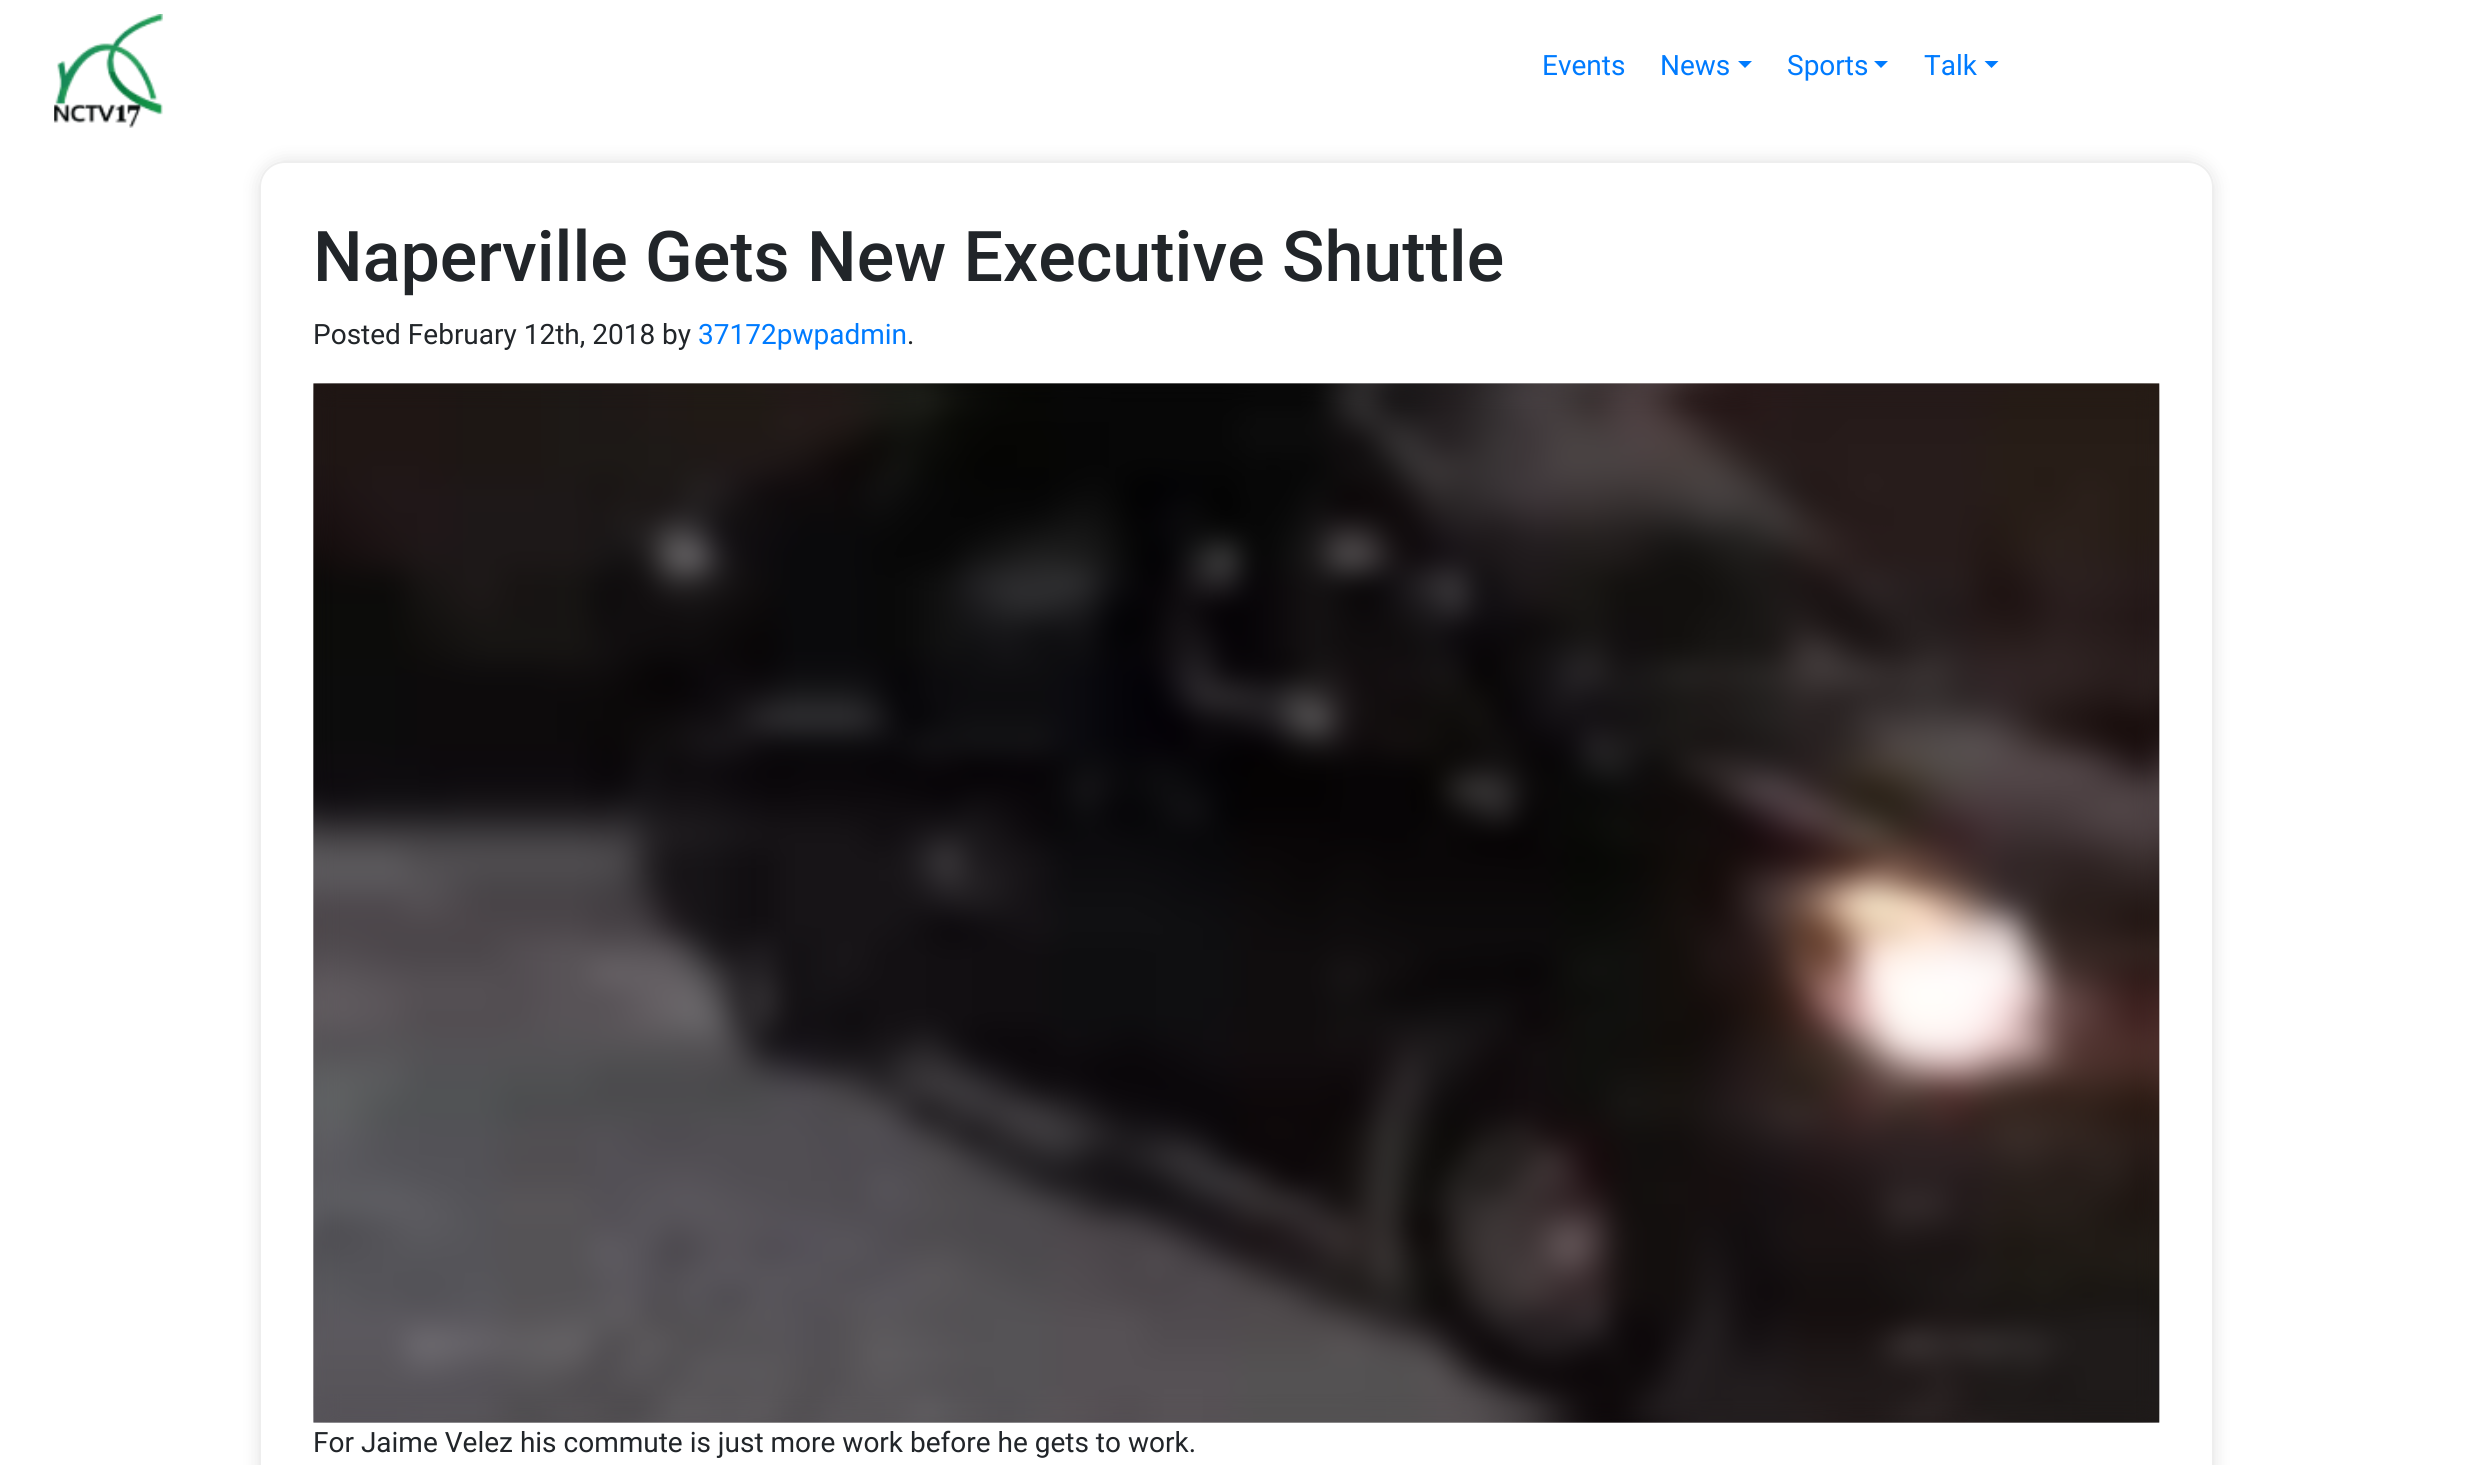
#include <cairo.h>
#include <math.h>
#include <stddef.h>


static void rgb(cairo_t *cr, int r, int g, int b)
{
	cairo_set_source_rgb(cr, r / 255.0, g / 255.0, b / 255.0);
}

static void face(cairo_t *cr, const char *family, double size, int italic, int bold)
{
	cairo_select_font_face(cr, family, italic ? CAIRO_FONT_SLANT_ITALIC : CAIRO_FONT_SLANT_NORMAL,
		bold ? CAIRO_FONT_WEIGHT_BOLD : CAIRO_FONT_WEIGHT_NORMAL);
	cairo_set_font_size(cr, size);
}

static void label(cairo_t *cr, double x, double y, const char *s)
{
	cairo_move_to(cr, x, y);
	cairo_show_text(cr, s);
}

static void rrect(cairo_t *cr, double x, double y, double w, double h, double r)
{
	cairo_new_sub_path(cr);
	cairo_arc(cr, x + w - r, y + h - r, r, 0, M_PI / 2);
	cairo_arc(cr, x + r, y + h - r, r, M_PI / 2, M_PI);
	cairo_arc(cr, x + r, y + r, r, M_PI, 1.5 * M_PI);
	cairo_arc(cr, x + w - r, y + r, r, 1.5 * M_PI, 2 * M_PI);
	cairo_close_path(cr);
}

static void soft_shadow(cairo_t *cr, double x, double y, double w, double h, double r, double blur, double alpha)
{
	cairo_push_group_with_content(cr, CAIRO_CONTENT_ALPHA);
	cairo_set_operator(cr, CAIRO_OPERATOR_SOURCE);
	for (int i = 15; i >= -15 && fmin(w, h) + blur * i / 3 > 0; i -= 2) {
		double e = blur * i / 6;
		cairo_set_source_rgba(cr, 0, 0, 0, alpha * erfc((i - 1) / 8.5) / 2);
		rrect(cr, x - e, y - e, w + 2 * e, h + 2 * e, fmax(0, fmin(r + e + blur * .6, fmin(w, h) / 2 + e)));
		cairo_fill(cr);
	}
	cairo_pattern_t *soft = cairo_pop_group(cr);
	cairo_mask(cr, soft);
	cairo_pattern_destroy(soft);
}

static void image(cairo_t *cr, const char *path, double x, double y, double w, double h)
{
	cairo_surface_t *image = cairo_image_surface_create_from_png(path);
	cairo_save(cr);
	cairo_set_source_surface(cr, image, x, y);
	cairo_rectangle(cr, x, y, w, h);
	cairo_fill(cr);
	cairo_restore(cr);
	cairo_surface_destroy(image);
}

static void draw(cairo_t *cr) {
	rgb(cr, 255, 255, 255);
	cairo_paint(cr);
	image(cr, "image0.png", 54, 14, 109, 114);
	face(cr, "Roboto", 28, 0, 0);
	rgb(cr, 0, 123, 255);
	label(cr, 1542, 75, "Events");
	label(cr, 1660, 75, "News");
	cairo_new_path(cr);
	cairo_move_to(cr, 1738, 61);
	cairo_line_to(cr, 1752, 61);
	cairo_line_to(cr, 1745, 68);
	cairo_close_path(cr);
	cairo_fill(cr);
	label(cr, 1787, 75, "Sports");
	cairo_new_path(cr);
	cairo_move_to(cr, 1874, 61);
	cairo_line_to(cr, 1888, 61);
	cairo_line_to(cr, 1881, 68);
	cairo_close_path(cr);
	cairo_fill(cr);
	label(cr, 1924, 75, "Talk");
	cairo_new_path(cr);
	cairo_move_to(cr, 1984.5, 61);
	cairo_line_to(cr, 1998.5, 61);
	cairo_line_to(cr, 1991.5, 68);
	cairo_close_path(cr);
	cairo_fill(cr);
	cairo_save(cr);
	cairo_set_fill_rule(cr, CAIRO_FILL_RULE_EVEN_ODD);
	cairo_new_path(cr);
	cairo_move_to(cr, 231, 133);
	cairo_line_to(cr, 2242, 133);
	cairo_line_to(cr, 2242, 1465);
	cairo_line_to(cr, 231, 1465);
	cairo_close_path(cr);
	cairo_move_to(cr, 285, 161);
	cairo_line_to(cr, 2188, 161);
	cairo_curve_to(cr, 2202.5, 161, 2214, 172.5, 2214, 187);
	cairo_line_to(cr, 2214, 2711);
	cairo_curve_to(cr, 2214, 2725.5, 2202.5, 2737, 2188, 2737);
	cairo_line_to(cr, 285, 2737);
	cairo_curve_to(cr, 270.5, 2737, 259, 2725.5, 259, 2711);
	cairo_line_to(cr, 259, 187);
	cairo_curve_to(cr, 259, 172.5, 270.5, 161, 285, 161);
	cairo_close_path(cr);
	cairo_clip(cr);
	rgb(cr, 0, 0, 0);
	soft_shadow(cr, 259, 161, 1955, 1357, 26, 9, 0.11);
	cairo_restore(cr);
	rrect(cr, 260, 162, 1953, 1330, 25);
	rgb(cr, 238, 238, 238);
	cairo_stroke(cr);
	face(cr, "Roboto Medium", 70, 0, 0);
	rgb(cr, 33, 37, 41);
	label(cr, 313, 281, "Naperville Gets New Executive Shuttle");
	face(cr, "Roboto", 28, 0, 0);
	label(cr, 313, 344, "Posted February 12th, 2018 by");
	rgb(cr, 0, 123, 255);
	label(cr, 698, 344, "37172pwpadmin");
	rgb(cr, 33, 37, 41);
	label(cr, 907, 344, ".");
	image(cr, "image1.png", 313, 383, 1847, 1040);
	label(cr, 313, 1452, "For Jaime Velez his commute is just more work before he gets to work.");
}

int main(void) {
	cairo_surface_t *surface = cairo_image_surface_create(CAIRO_FORMAT_RGB24, 2472, 1465);
	cairo_t *cr = cairo_create(surface);
	cairo_font_options_t *options = cairo_font_options_create();
	cairo_font_options_set_hint_metrics(options, CAIRO_HINT_METRICS_OFF);
	cairo_font_options_set_hint_style(options, CAIRO_HINT_STYLE_NONE);
	cairo_set_font_options(cr, options);
	cairo_set_miter_limit(cr, 4);
	draw(cr);
	cairo_surface_write_to_png(surface, "render.png");
	cairo_font_options_destroy(options);
	cairo_destroy(cr);
	cairo_surface_destroy(surface);
	return 0;
}
